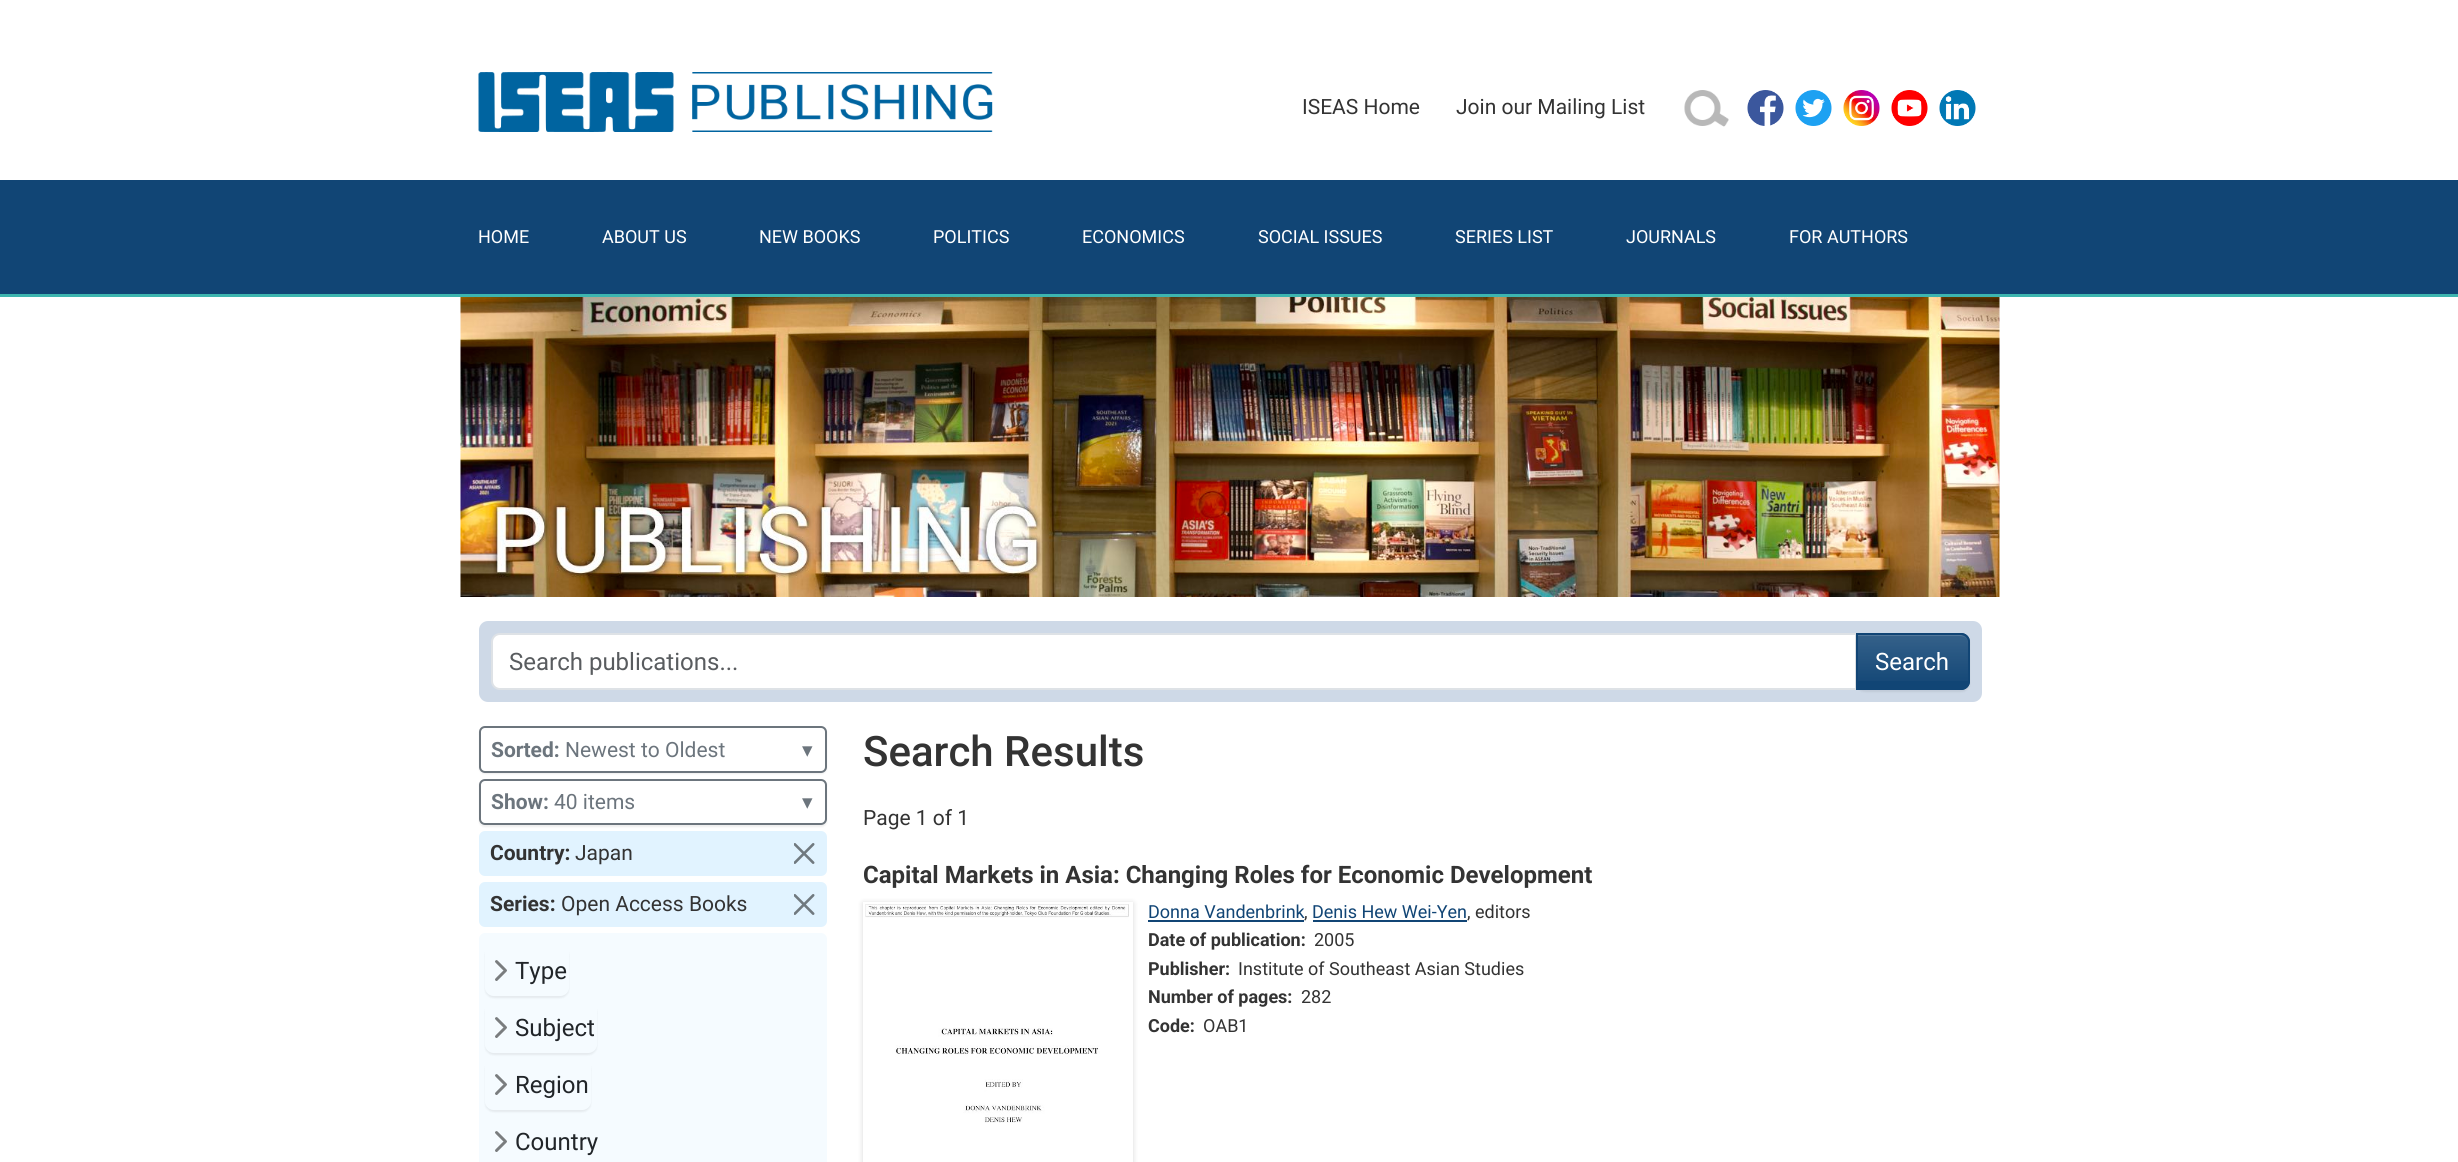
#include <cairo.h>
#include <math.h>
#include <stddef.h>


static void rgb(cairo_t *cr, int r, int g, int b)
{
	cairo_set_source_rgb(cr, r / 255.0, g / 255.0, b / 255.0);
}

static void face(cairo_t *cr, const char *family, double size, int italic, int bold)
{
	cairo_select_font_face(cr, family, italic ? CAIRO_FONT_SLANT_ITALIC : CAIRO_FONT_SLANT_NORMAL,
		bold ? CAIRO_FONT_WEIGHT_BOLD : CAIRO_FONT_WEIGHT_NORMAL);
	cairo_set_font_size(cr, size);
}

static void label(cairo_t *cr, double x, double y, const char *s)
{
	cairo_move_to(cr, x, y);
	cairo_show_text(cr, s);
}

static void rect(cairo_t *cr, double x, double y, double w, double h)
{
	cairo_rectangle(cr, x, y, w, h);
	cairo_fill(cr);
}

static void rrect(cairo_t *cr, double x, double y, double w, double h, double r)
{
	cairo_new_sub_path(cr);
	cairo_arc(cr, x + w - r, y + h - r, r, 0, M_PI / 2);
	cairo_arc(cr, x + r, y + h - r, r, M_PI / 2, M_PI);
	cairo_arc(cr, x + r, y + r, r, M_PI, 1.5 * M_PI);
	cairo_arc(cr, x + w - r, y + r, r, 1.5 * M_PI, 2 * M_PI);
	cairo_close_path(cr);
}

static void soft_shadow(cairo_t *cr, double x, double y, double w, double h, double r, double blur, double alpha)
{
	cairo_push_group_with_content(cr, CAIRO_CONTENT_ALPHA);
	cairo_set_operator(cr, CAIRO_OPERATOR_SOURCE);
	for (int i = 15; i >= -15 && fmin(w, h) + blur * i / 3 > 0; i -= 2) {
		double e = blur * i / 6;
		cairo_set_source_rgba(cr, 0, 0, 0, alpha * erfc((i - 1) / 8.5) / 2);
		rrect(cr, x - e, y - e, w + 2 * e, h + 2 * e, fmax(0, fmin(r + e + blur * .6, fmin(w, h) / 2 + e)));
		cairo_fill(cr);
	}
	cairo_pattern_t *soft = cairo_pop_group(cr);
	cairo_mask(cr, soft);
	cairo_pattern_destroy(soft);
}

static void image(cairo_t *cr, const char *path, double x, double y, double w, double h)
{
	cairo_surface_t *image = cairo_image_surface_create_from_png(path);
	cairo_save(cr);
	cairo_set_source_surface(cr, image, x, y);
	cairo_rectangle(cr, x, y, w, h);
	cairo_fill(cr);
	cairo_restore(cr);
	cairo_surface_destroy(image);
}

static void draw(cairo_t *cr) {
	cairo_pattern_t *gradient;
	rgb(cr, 255, 255, 255);
	cairo_paint(cr);
	image(cr, "image0.png", 478, 72, 515, 60);
	face(cr, "Roboto", 21, 0, 0);
	rgb(cr, 51, 51, 51);
	label(cr, 1302, 114, "ISEAS Home");
	label(cr, 1456, 114, "Join our Mailing List");
	image(cr, "image1.png", 1684, 90, 45, 37);
	image(cr, "image2.png", 1747, 90, 37, 36);
	image(cr, "image3.png", 1795, 90, 37, 36);
	image(cr, "image4.png", 1843, 90, 37, 36);
	image(cr, "image5.png", 1891, 90, 37, 36);
	image(cr, "image6.png", 1939, 90, 37, 36);
	rgb(cr, 17, 69, 117);
	rect(cr, 0, 180, 2458, 114);
	rgb(cr, 61, 181, 175);
	rect(cr, 0, 294, 2458, 3);
	face(cr, "Roboto", 18, 0, 0);
	rgb(cr, 255, 255, 255);
	label(cr, 478, 243, "HOME");
	label(cr, 602, 243, "ABOUT US");
	label(cr, 759, 243, "NEW BOOKS");
	label(cr, 933, 243, "POLITICS");
	label(cr, 1082, 243, "ECONOMICS");
	label(cr, 1258, 243, "SOCIAL ISSUES");
	label(cr, 1455, 243, "SERIES LIST");
	label(cr, 1626, 243, "JOURNALS");
	label(cr, 1789, 243, "FOR AUTHORS");
	image(cr, "image7.png", 460, 297, 1540, 300);
	rgb(cr, 206, 217, 231);
	rrect(cr, 479, 621, 1503, 81, 9);
	cairo_fill(cr);
	rgb(cr, 255, 255, 255);
	cairo_new_path(cr);
	cairo_move_to(cr, 500, 634);
	cairo_line_to(cr, 1856, 634);
	cairo_line_to(cr, 1856, 689);
	cairo_line_to(cr, 500, 689);
	cairo_curve_to(cr, 495.5, 689, 492, 685.5, 492, 681);
	cairo_line_to(cr, 492, 642);
	cairo_curve_to(cr, 492, 637.5, 495.5, 634, 500, 634);
	cairo_close_path(cr);
	cairo_fill_preserve(cr);
	rgb(cr, 222, 226, 230);
	cairo_stroke(cr);
	face(cr, "Roboto", 24, 0, 0);
	rgb(cr, 89, 92, 95);
	label(cr, 509, 670, "Search publications...");
	rgb(cr, 0, 0, 0);
	soft_shadow(cr, 1856, 635, 114, 57, 9, 1, 0.07);
	rgb(cr, 17, 69, 117);
	cairo_new_path(cr);
	cairo_move_to(cr, 1856, 633);
	cairo_line_to(cr, 1961, 633);
	cairo_curve_to(cr, 1966, 633, 1970, 637, 1970, 642);
	cairo_line_to(cr, 1970, 681);
	cairo_curve_to(cr, 1970, 686, 1966, 690, 1961, 690);
	cairo_line_to(cr, 1856, 690);
	cairo_close_path(cr);
	cairo_fill(cr);
	cairo_save(cr);
	cairo_new_path(cr);
	cairo_move_to(cr, 1856, 633);
	cairo_line_to(cr, 1961, 633);
	cairo_curve_to(cr, 1966, 633, 1970, 637, 1970, 642);
	cairo_line_to(cr, 1970, 681);
	cairo_curve_to(cr, 1970, 686, 1966, 690, 1961, 690);
	cairo_line_to(cr, 1856, 690);
	cairo_close_path(cr);
	cairo_clip(cr);
	gradient = cairo_pattern_create_linear(1913, 635, 1913, 689);
	cairo_pattern_add_color_stop_rgba(gradient, 0, 1, 1, 1, 0.15);
	cairo_pattern_add_color_stop_rgba(gradient, 1, 1, 1, 1, 0);
	cairo_set_source(cr, gradient);
	cairo_pattern_destroy(gradient);
	rect(cr, 1858, 635, 112, 46);
	cairo_restore(cr);
	rgb(cr, 83, 120, 155);
	cairo_new_path(cr);
	cairo_move_to(cr, 1857, 636);
	cairo_line_to(cr, 1960, 636);
	cairo_curve_to(cr, 1965, 636, 1968, 639, 1968, 644);
	cairo_line_to(cr, 1968, 643);
	cairo_curve_to(cr, 1968, 639, 1964, 635, 1960, 635);
	cairo_line_to(cr, 1857, 635);
	cairo_close_path(cr);
	cairo_fill(cr);
	cairo_new_path(cr);
	cairo_move_to(cr, 1857, 634);
	cairo_line_to(cr, 1961, 634);
	cairo_curve_to(cr, 1965.5, 634, 1969, 637.5, 1969, 642);
	cairo_line_to(cr, 1969, 681);
	cairo_curve_to(cr, 1969, 685.5, 1965.5, 689, 1961, 689);
	cairo_line_to(cr, 1857, 689);
	cairo_close_path(cr);
	rgb(cr, 17, 69, 117);
	cairo_stroke(cr);
	rgb(cr, 255, 255, 255);
	label(cr, 1875, 670, "Search");
	cairo_save(cr);
	cairo_set_fill_rule(cr, CAIRO_FILL_RULE_EVEN_ODD);
	cairo_new_path(cr);
	cairo_move_to(cr, 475, 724);
	cairo_line_to(cr, 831, 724);
	cairo_line_to(cr, 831, 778);
	cairo_line_to(cr, 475, 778);
	cairo_close_path(cr);
	cairo_move_to(cr, 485, 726);
	cairo_line_to(cr, 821, 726);
	cairo_curve_to(cr, 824.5, 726, 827, 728.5, 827, 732);
	cairo_line_to(cr, 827, 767);
	cairo_curve_to(cr, 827, 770.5, 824.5, 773, 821, 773);
	cairo_line_to(cr, 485, 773);
	cairo_curve_to(cr, 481.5, 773, 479, 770.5, 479, 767);
	cairo_line_to(cr, 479, 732);
	cairo_curve_to(cr, 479, 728.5, 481.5, 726, 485, 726);
	cairo_close_path(cr);
	cairo_clip(cr);
	rgb(cr, 0, 0, 0);
	soft_shadow(cr, 479, 728, 348, 46, 6, 1, 0.07);
	cairo_restore(cr);
	rrect(cr, 480, 727, 346, 45, 5);
	rgb(cr, 108, 117, 125);
	cairo_stroke(cr);
	face(cr, "Roboto", 21, 0, 1);
	label(cr, 491, 757, "Sorted:");
	face(cr, "Roboto", 21, 0, 0);
	label(cr, 565, 757, "Newest to Oldest");
	face(cr, "DejaVu Sans", 21, 0, 0);
	label(cr, 802, 757, "▾");
	cairo_save(cr);
	cairo_set_fill_rule(cr, CAIRO_FILL_RULE_EVEN_ODD);
	cairo_new_path(cr);
	cairo_move_to(cr, 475, 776);
	cairo_line_to(cr, 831, 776);
	cairo_line_to(cr, 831, 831);
	cairo_line_to(cr, 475, 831);
	cairo_close_path(cr);
	cairo_move_to(cr, 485, 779);
	cairo_line_to(cr, 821, 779);
	cairo_curve_to(cr, 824.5, 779, 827, 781.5, 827, 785);
	cairo_line_to(cr, 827, 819);
	cairo_curve_to(cr, 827, 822.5, 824.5, 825, 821, 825);
	cairo_line_to(cr, 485, 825);
	cairo_curve_to(cr, 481.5, 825, 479, 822.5, 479, 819);
	cairo_line_to(cr, 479, 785);
	cairo_curve_to(cr, 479, 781.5, 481.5, 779, 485, 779);
	cairo_close_path(cr);
	cairo_clip(cr);
	rgb(cr, 0, 0, 0);
	soft_shadow(cr, 479, 780, 348, 47, 6, 1, 0.07);
	cairo_restore(cr);
	rrect(cr, 480, 780, 346, 44, 5);
	cairo_stroke(cr);
	face(cr, "Roboto", 21, 0, 1);
	label(cr, 491, 809, "Show:");
	face(cr, "Roboto", 21, 0, 0);
	label(cr, 554, 809, "40 items");
	face(cr, "DejaVu Sans", 21, 0, 0);
	label(cr, 802, 809, "▾");
	rgb(cr, 225, 243, 255);
	rrect(cr, 479, 831, 348, 45, 6);
	cairo_fill(cr);
	face(cr, "Roboto", 21, 0, 1);
	rgb(cr, 51, 51, 51);
	label(cr, 490, 860, "Country:");
	face(cr, "Roboto", 21, 0, 0);
	label(cr, 575, 860, "Japan");
	image(cr, "image8.png", 794, 843, 21, 21);
	rgb(cr, 225, 243, 255);
	rrect(cr, 479, 882, 348, 45, 6);
	cairo_fill(cr);
	face(cr, "Roboto", 21, 0, 1);
	rgb(cr, 51, 51, 51);
	label(cr, 490, 911, "Series:");
	face(cr, "Roboto", 21, 0, 0);
	label(cr, 561, 911, "Open Access Books");
	image(cr, "image8.png", 794, 894, 21, 21);
	rgb(cr, 245, 251, 255);
	rrect(cr, 479, 933, 348, 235, 6);
	cairo_fill(cr);
	cairo_save(cr);
	cairo_set_fill_rule(cr, CAIRO_FILL_RULE_EVEN_ODD);
	cairo_new_path(cr);
	cairo_move_to(cr, 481, 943);
	cairo_line_to(cr, 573, 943);
	cairo_line_to(cr, 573, 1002);
	cairo_line_to(cr, 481, 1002);
	cairo_close_path(cr);
	cairo_move_to(cr, 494, 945);
	cairo_line_to(cr, 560, 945);
	cairo_curve_to(cr, 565, 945, 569, 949, 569, 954);
	cairo_line_to(cr, 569, 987);
	cairo_curve_to(cr, 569, 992, 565, 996, 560, 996);
	cairo_line_to(cr, 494, 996);
	cairo_curve_to(cr, 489, 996, 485, 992, 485, 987);
	cairo_line_to(cr, 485, 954);
	cairo_curve_to(cr, 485, 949, 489, 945, 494, 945);
	cairo_close_path(cr);
	cairo_clip(cr);
	rgb(cr, 0, 0, 0);
	soft_shadow(cr, 485, 947, 84, 51, 9, 1, 0.07);
	cairo_restore(cr);
	image(cr, "image9.png", 495, 960, 12, 21);
	face(cr, "Roboto", 24, 0, 0);
	rgb(cr, 33, 37, 41);
	label(cr, 515, 979, "Type");
	cairo_save(cr);
	cairo_set_fill_rule(cr, CAIRO_FILL_RULE_EVEN_ODD);
	cairo_new_path(cr);
	cairo_move_to(cr, 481, 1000);
	cairo_line_to(cr, 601, 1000);
	cairo_line_to(cr, 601, 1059);
	cairo_line_to(cr, 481, 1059);
	cairo_close_path(cr);
	cairo_move_to(cr, 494, 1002);
	cairo_line_to(cr, 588, 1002);
	cairo_curve_to(cr, 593, 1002, 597, 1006, 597, 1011);
	cairo_line_to(cr, 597, 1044);
	cairo_curve_to(cr, 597, 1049, 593, 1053, 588, 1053);
	cairo_line_to(cr, 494, 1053);
	cairo_curve_to(cr, 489, 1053, 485, 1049, 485, 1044);
	cairo_line_to(cr, 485, 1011);
	cairo_curve_to(cr, 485, 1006, 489, 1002, 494, 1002);
	cairo_close_path(cr);
	cairo_clip(cr);
	rgb(cr, 0, 0, 0);
	soft_shadow(cr, 485, 1004, 112, 51, 9, 1, 0.07);
	cairo_restore(cr);
	image(cr, "image10.png", 495, 1017, 12, 21);
	label(cr, 515, 1036, "Subject");
	cairo_save(cr);
	cairo_set_fill_rule(cr, CAIRO_FILL_RULE_EVEN_ODD);
	cairo_new_path(cr);
	cairo_move_to(cr, 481, 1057);
	cairo_line_to(cr, 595, 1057);
	cairo_line_to(cr, 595, 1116);
	cairo_line_to(cr, 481, 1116);
	cairo_close_path(cr);
	cairo_move_to(cr, 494, 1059);
	cairo_line_to(cr, 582, 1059);
	cairo_curve_to(cr, 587, 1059, 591, 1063, 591, 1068);
	cairo_line_to(cr, 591, 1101);
	cairo_curve_to(cr, 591, 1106, 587, 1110, 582, 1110);
	cairo_line_to(cr, 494, 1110);
	cairo_curve_to(cr, 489, 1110, 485, 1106, 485, 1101);
	cairo_line_to(cr, 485, 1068);
	cairo_curve_to(cr, 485, 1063, 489, 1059, 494, 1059);
	cairo_close_path(cr);
	cairo_clip(cr);
	rgb(cr, 0, 0, 0);
	soft_shadow(cr, 485, 1061, 106, 51, 9, 1, 0.07);
	cairo_restore(cr);
	image(cr, "image10.png", 495, 1074, 12, 21);
	label(cr, 515, 1093, "Region");
	image(cr, "image10.png", 495, 1131, 12, 21);
	label(cr, 515, 1150, "Country");
	face(cr, "Roboto Medium", 42, 0, 0);
	rgb(cr, 51, 51, 51);
	label(cr, 863, 766, "Search Results");
	face(cr, "Roboto", 21, 0, 0);
	label(cr, 863, 825, "Page 1 of 1");
	face(cr, "Roboto", 24, 0, 1);
	label(cr, 863, 883, "Capital Markets in Asia: Changing Roles for Economic Development");
	cairo_save(cr);
	cairo_set_fill_rule(cr, CAIRO_FILL_RULE_EVEN_ODD);
	cairo_new_path(cr);
	cairo_move_to(cr, 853, 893);
	cairo_line_to(cr, 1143, 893);
	cairo_line_to(cr, 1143, 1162);
	cairo_line_to(cr, 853, 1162);
	cairo_close_path(cr);
	cairo_move_to(cr, 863, 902);
	cairo_line_to(cr, 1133, 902);
	cairo_line_to(cr, 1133, 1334);
	cairo_line_to(cr, 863, 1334);
	cairo_close_path(cr);
	cairo_clip(cr);
	rgb(cr, 0, 0, 0);
	soft_shadow(cr, 863, 903, 270, 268, 0, 3, 0.15);
	cairo_restore(cr);
	image(cr, "image11.png", 865, 904, 264, 219);
	face(cr, "Roboto", 18, 0, 0);
	rgb(cr, 17, 69, 117);
	label(cr, 1148, 918, "Donna Vandenbrink");
	rect(cr, 1148, 920, 156, 2);
	rgb(cr, 51, 51, 51);
	label(cr, 1304, 918, ",");
	rgb(cr, 17, 69, 117);
	label(cr, 1312, 918, "Denis Hew Wei-Yen");
	rect(cr, 1313, 920, 154, 2);
	rgb(cr, 51, 51, 51);
	label(cr, 1467, 918, ", editors");
	face(cr, "Roboto", 18, 0, 1);
	label(cr, 1148, 946, "Date of publication:");
	face(cr, "Roboto", 18, 0, 0);
	label(cr, 1314, 946, "2005");
	face(cr, "Roboto", 18, 0, 1);
	label(cr, 1148, 975, "Publisher:");
	face(cr, "Roboto", 18, 0, 0);
	label(cr, 1238, 975, "Institute of Southeast Asian Studies");
	face(cr, "Roboto", 18, 0, 1);
	label(cr, 1148, 1003, "Number of pages:");
	face(cr, "Roboto", 18, 0, 0);
	label(cr, 1301, 1003, "282");
	face(cr, "Roboto", 18, 0, 1);
	label(cr, 1148, 1032, "Code:");
	face(cr, "Roboto", 18, 0, 0);
	label(cr, 1203, 1032, "OAB1");
}

int main(void) {
	cairo_surface_t *surface = cairo_image_surface_create(CAIRO_FORMAT_RGB24, 2458, 1162);
	cairo_t *cr = cairo_create(surface);
	cairo_font_options_t *options = cairo_font_options_create();
	cairo_font_options_set_hint_metrics(options, CAIRO_HINT_METRICS_OFF);
	cairo_font_options_set_hint_style(options, CAIRO_HINT_STYLE_NONE);
	cairo_set_font_options(cr, options);
	cairo_set_miter_limit(cr, 4);
	draw(cr);
	cairo_surface_write_to_png(surface, "render.png");
	cairo_font_options_destroy(options);
	cairo_destroy(cr);
	cairo_surface_destroy(surface);
	return 0;
}
